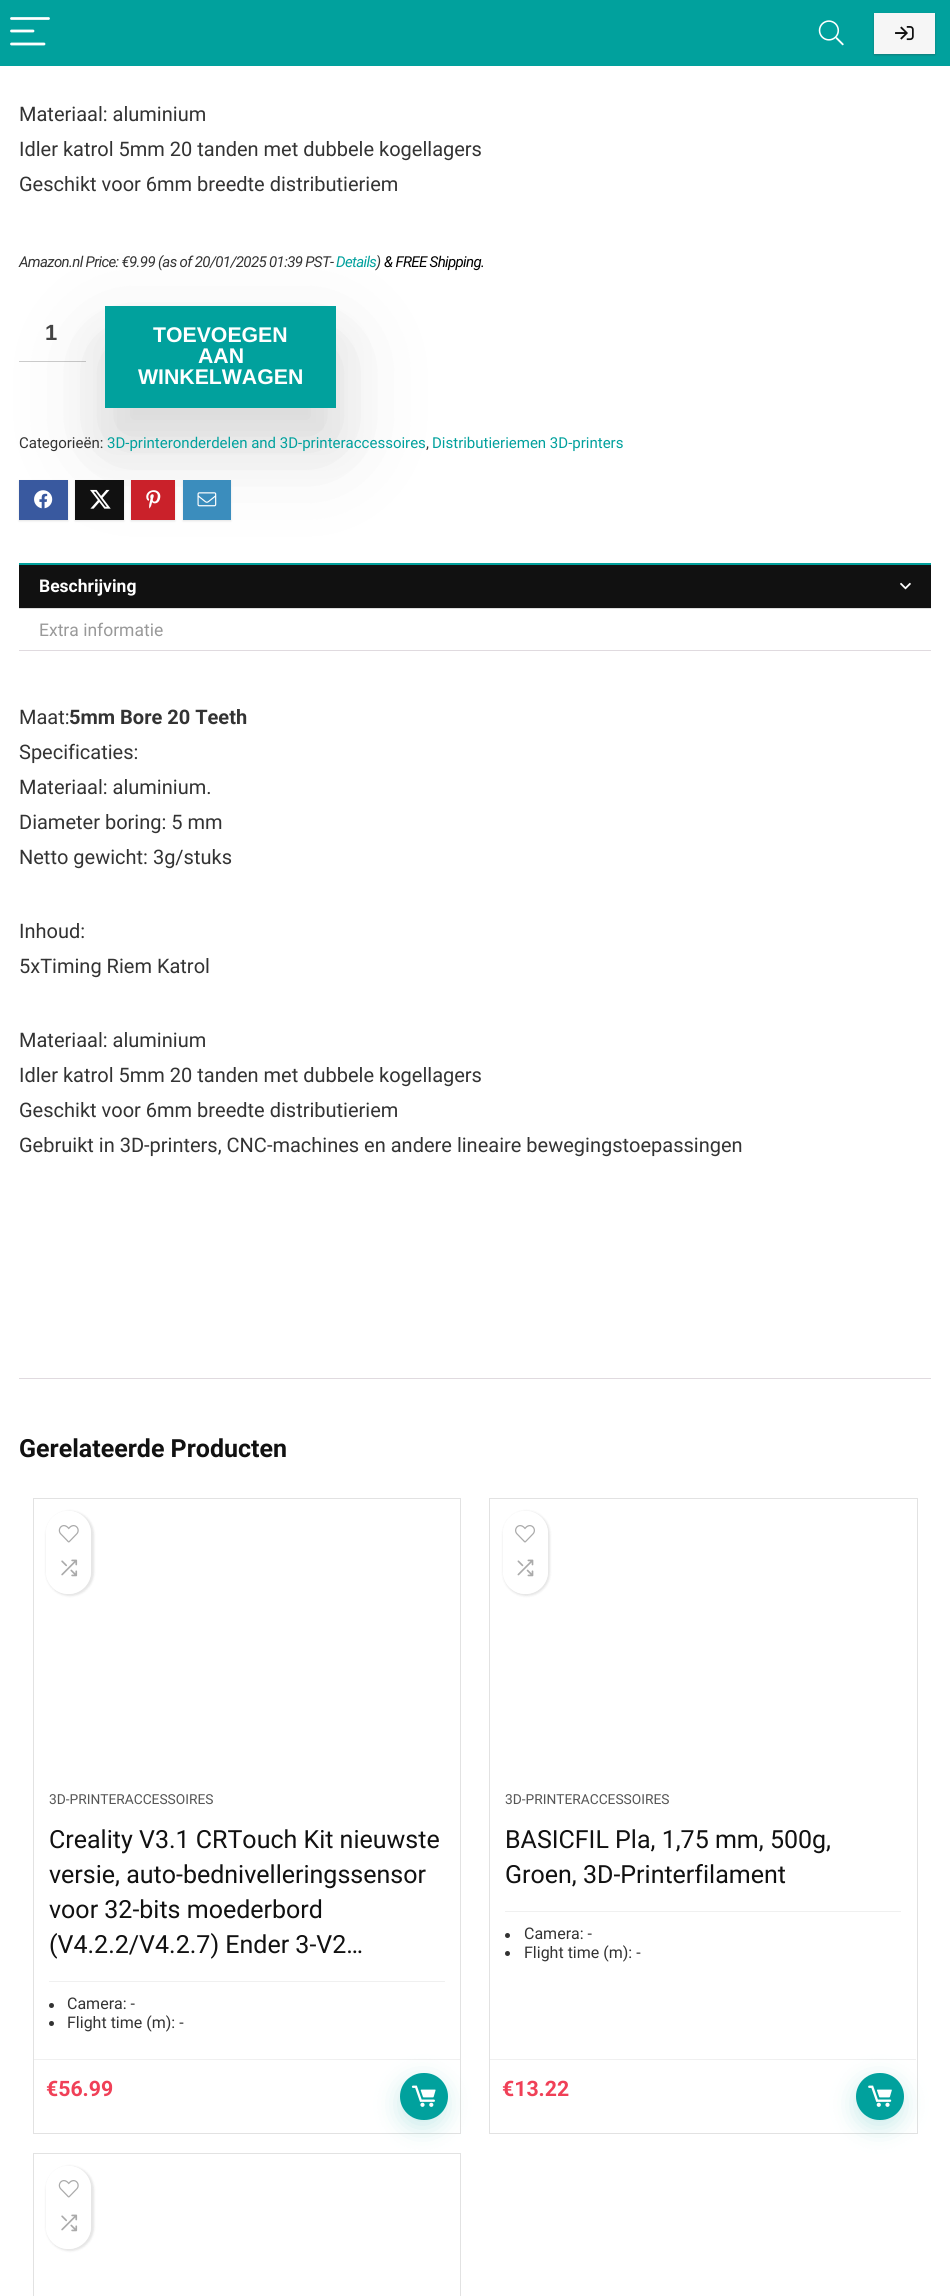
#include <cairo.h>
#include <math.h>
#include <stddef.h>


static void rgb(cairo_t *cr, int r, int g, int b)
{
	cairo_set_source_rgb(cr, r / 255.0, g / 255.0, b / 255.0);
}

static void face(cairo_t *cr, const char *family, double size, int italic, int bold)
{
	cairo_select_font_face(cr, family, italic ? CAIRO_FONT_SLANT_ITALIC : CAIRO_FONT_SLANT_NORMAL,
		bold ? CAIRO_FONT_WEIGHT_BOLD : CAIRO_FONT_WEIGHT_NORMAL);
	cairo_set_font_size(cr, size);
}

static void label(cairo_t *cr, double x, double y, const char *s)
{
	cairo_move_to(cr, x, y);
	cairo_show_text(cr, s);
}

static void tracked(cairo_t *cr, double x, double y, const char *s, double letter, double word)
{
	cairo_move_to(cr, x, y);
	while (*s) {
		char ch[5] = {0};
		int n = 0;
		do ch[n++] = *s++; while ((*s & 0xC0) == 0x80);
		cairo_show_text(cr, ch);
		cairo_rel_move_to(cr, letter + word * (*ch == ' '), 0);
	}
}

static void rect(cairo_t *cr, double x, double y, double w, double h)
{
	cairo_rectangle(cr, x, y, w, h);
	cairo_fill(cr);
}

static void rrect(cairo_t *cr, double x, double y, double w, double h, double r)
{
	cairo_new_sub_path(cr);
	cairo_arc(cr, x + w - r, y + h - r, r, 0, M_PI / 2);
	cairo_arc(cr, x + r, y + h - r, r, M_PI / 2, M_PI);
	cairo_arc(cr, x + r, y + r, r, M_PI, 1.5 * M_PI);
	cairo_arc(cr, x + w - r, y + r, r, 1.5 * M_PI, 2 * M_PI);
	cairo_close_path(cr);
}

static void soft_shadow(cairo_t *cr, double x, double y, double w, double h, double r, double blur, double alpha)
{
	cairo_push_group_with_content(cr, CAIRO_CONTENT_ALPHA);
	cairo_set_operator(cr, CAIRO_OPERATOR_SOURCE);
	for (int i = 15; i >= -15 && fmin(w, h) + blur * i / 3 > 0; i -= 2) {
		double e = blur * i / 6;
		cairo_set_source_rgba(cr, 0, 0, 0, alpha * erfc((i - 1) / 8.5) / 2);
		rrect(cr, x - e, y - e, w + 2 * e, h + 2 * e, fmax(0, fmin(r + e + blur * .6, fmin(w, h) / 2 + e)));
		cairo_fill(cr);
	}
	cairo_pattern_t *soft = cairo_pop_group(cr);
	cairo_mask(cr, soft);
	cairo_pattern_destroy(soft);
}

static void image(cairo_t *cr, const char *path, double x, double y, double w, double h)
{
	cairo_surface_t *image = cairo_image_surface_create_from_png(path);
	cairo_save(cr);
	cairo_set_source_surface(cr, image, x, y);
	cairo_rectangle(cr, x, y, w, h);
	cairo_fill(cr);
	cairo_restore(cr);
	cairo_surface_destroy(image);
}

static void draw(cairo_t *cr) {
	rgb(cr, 255, 255, 255);
	cairo_paint(cr);
	rgb(cr, 1, 161, 157);
	rect(cr, 0, 0, 950, 66);
	cairo_new_path(cr);
	cairo_move_to(cr, 11.5, 18.5);
	cairo_line_to(cr, 48.5, 18.5);
	cairo_move_to(cr, 11.5, 31);
	cairo_line_to(cr, 33, 31);
	cairo_move_to(cr, 11.5, 44);
	cairo_line_to(cr, 44, 44);
	rgb(cr, 255, 255, 255);
	cairo_set_line_width(cr, 2.8);
	cairo_set_line_cap(cr, CAIRO_LINE_CAP_ROUND);
	cairo_stroke(cr);
	image(cr, "image0.png", 818, 20, 26, 26);
	rgb(cr, 0, 0, 0);
	soft_shadow(cr, 874, 14, 61, 41, 0, 1, 0.08);
	rgb(cr, 60, 64, 67);
	soft_shadow(cr, 874, 14, 61, 41, 0, 1, 0.3);
	rgb(cr, 246, 246, 246);
	rect(cr, 874, 13, 61, 41);
	image(cr, "image1.png", 895, 26, 19, 15);
	face(cr, "Roboto", 20, 0, 0);
	rgb(cr, 51, 51, 51);
	label(cr, 19, 121, "Materiaal: aluminium");
	label(cr, 19, 156, "Idler katrol 5mm 20 tanden met dubbele kogellagers");
	label(cr, 19, 191, "Geschikt voor 6mm breedte distributieriem");
	face(cr, "Roboto", 15, 1, 0);
	tracked(cr, 19, 267, "Amazon.nl Price: €9.99 (as of 20/01/2025 01:39 PST-", -0.62, 0);
	rgb(cr, 1, 161, 157);
	tracked(cr, 336, 267, "Details", -0.62, 0);
	rgb(cr, 51, 51, 51);
	tracked(cr, 376, 267, ")", -0.62, 0);
	rgb(cr, 0, 0, 0);
	tracked(cr, 384, 267, "& FREE Shipping.", -0.62, 0);
	rgb(cr, 204, 204, 204);
	rect(cr, 19, 361, 67, 1);
	face(cr, "Liberation Sans", 22, 0, 1);
	rgb(cr, 68, 68, 68);
	label(cr, 45, 340, "1");
	rgb(cr, 0, 0, 0);
	soft_shadow(cr, 105, 344, 231, 101, 0, 50, 0.12);
	soft_shadow(cr, 105, 341, 231, 102, 0, 24, 0.06);
	rgb(cr, 1, 161, 157);
	rect(cr, 105, 306, 231, 102);
	face(cr, "Liberation Sans", 21.25, 0, 1);
	rgb(cr, 255, 255, 255);
	label(cr, 153, 342, "TOEVOEGEN");
	label(cr, 198, 363, "AAN");
	label(cr, 138, 384, "WINKELWAGEN");
	face(cr, "Roboto", 15, 0, 0);
	rgb(cr, 51, 51, 51);
	label(cr, 19, 448, "Categorieën:");
	rgb(cr, 1, 161, 157);
	label(cr, 107, 448, "3D-printeronderdelen and 3D-printeraccessoires");
	rgb(cr, 51, 51, 51);
	label(cr, 426, 448, ",");
	rgb(cr, 1, 161, 157);
	label(cr, 432, 448, "Distributieriemen 3D-printers");
	rgb(cr, 228, 228, 228);
	soft_shadow(cr, 19, 481, 49, 40, 0, 1, 1);
	rgb(cr, 57, 89, 159);
	rect(cr, 19, 480, 49, 40);
	image(cr, "image2.png", 34, 490, 19, 19);
	rgb(cr, 228, 228, 228);
	soft_shadow(cr, 75, 481, 49, 40, 0, 1, 1);
	rgb(cr, 17, 17, 17);
	rect(cr, 75, 480, 49, 40);
	image(cr, "image3.png", 90, 489, 21, 20);
	rgb(cr, 228, 228, 228);
	soft_shadow(cr, 131, 481, 44, 40, 0, 1, 1);
	rgb(cr, 202, 33, 42);
	rect(cr, 131, 480, 44, 40);
	image(cr, "image4.png", 146, 490, 15, 19);
	rgb(cr, 228, 228, 228);
	soft_shadow(cr, 183, 481, 48, 40, 0, 1, 1);
	rgb(cr, 59, 141, 189);
	rect(cr, 183, 480, 48, 40);
	image(cr, "image5.png", 197, 492, 20, 15);
	rgb(cr, 1, 161, 157);
	rect(cr, 19, 563, 912, 2);
	rgb(cr, 17, 17, 17);
	rect(cr, 19, 565, 912, 43);
	rgb(cr, 221, 221, 221);
	rect(cr, 19, 608, 912, 1);
	face(cr, "Roboto", 17.5, 0, 1);
	rgb(cr, 255, 255, 255);
	label(cr, 39, 592, "Beschrijving");
	image(cr, "image6.png", 900, 582, 11, 8);
	face(cr, "Roboto", 17.5, 0, 0);
	rgb(cr, 153, 153, 153);
	label(cr, 39, 636, "Extra informatie");
	rgb(cr, 224, 218, 223);
	rect(cr, 19, 650, 912, 1);
	rect(cr, 19, 1378, 912, 1);
	face(cr, "Roboto", 20, 0, 0);
	rgb(cr, 51, 51, 51);
	label(cr, 19, 724, "Maat:");
	face(cr, "Roboto", 20, 0, 1);
	label(cr, 69, 724, "5mm Bore 20 Teeth");
	face(cr, "Roboto", 20, 0, 0);
	label(cr, 19, 759, "Specificaties:");
	label(cr, 19, 794, "Materiaal: aluminium.");
	label(cr, 19, 829, "Diameter boring: 5 mm");
	label(cr, 19, 864, "Netto gewicht: 3g/stuks");
	label(cr, 19, 938, "Inhoud:");
	label(cr, 19, 973, "5xTiming Riem Katrol");
	label(cr, 19, 1047, "Materiaal: aluminium");
	label(cr, 19, 1082, "Idler katrol 5mm 20 tanden met dubbele kogellagers");
	label(cr, 19, 1117, "Geschikt voor 6mm breedte distributieriem");
	label(cr, 19, 1152, "Gebruikt in 3D-printers, CNC-machines en andere lineaire bewegingstoepassingen");
	face(cr, "Roboto", 25, 0, 1);
	rgb(cr, 17, 17, 17);
	label(cr, 19, 1457, "Gerelateerde Producten");
	cairo_rectangle(cr, 33.5, 1498.5, 427, 635);
	rgb(cr, 226, 226, 226);
	cairo_set_line_width(cr, 1);
	cairo_set_line_cap(cr, CAIRO_LINE_CAP_BUTT);
	cairo_stroke(cr);
	cairo_save(cr);
	cairo_set_fill_rule(cr, CAIRO_FILL_RULE_EVEN_ODD);
	cairo_new_path(cr);
	cairo_move_to(cr, 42, 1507);
	cairo_line_to(cr, 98, 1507);
	cairo_line_to(cr, 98, 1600);
	cairo_line_to(cr, 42, 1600);
	cairo_close_path(cr);
	cairo_move_to(cr, 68.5, 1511);
	cairo_curve_to(cr, 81, 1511, 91, 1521, 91, 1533.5);
	cairo_line_to(cr, 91, 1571.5);
	cairo_curve_to(cr, 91, 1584, 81, 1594, 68.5, 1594);
	cairo_curve_to(cr, 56, 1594, 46, 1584, 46, 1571.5);
	cairo_line_to(cr, 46, 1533.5);
	cairo_curve_to(cr, 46, 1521, 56, 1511, 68.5, 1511);
	cairo_close_path(cr);
	cairo_clip(cr);
	rgb(cr, 0, 0, 0);
	soft_shadow(cr, 46, 1511, 48, 85, 24, 1, 0.1);
	cairo_restore(cr);
	cairo_set_source_rgba(cr, 1, 1, 1, 0.78);
	rrect(cr, 46, 1511, 45, 83, 22.5);
	cairo_fill(cr);
	image(cr, "image7.png", 58, 1525, 21, 18);
	image(cr, "image8.png", 61, 1559, 17, 18);
	face(cr, "Roboto", 13.75, 0, 0);
	rgb(cr, 85, 85, 85);
	label(cr, 49, 1804, "3D-PRINTERACCESSOIRES");
	face(cr, "Roboto", 25, 0, 0);
	rgb(cr, 17, 17, 17);
	label(cr, 49, 1848, "Creality V3.1 CRTouch Kit nieuwste");
	label(cr, 49, 1883, "versie, auto-bednivelleringssensor");
	label(cr, 49, 1918, "voor 32-bits moederbord");
	label(cr, 49, 1953, "(V4.2.2/V4.2.7) Ender 3-V2…");
	rgb(cr, 240, 240, 240);
	rect(cr, 49, 1981, 396, 1);
	rgb(cr, 51, 51, 51);
	cairo_new_path(cr);
	cairo_arc(cr, 51.5, 2005.5, 2.5, 0, 2 * M_PI);
	cairo_fill(cr);
	face(cr, "Roboto", 16, 0, 0);
	label(cr, 67, 2009, "Camera: -");
	cairo_new_path(cr);
	cairo_arc(cr, 51.5, 2023.5, 2.5, 0, 2 * M_PI);
	cairo_fill(cr);
	label(cr, 67, 2028, "Flight time (m): -");
	rgb(cr, 240, 240, 240);
	rect(cr, 34, 2059, 426, 1);
	face(cr, "Roboto", 21.25, 0, 1);
	rgb(cr, 240, 64, 87);
	label(cr, 46, 2096, "€56.99");
	rgb(cr, 1, 161, 157);
	soft_shadow(cr, 399, 2080, 47, 48, 23.5, 12, 0.2);
	rgb(cr, 1, 161, 157);
	rrect(cr, 400, 2073, 48, 47, 23.5);
	cairo_fill(cr);
	image(cr, "image9.png", 411, 2085, 25, 22);
	cairo_rectangle(cr, 489.5, 1498.5, 428, 635);
	rgb(cr, 226, 226, 226);
	cairo_stroke(cr);
	cairo_save(cr);
	cairo_set_fill_rule(cr, CAIRO_FILL_RULE_EVEN_ODD);
	cairo_new_path(cr);
	cairo_move_to(cr, 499, 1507);
	cairo_line_to(cr, 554, 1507);
	cairo_line_to(cr, 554, 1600);
	cairo_line_to(cr, 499, 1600);
	cairo_close_path(cr);
	cairo_move_to(cr, 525.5, 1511);
	cairo_curve_to(cr, 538, 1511, 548, 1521, 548, 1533.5);
	cairo_line_to(cr, 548, 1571.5);
	cairo_curve_to(cr, 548, 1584, 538, 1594, 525.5, 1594);
	cairo_curve_to(cr, 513, 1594, 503, 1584, 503, 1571.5);
	cairo_line_to(cr, 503, 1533.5);
	cairo_curve_to(cr, 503, 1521, 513, 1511, 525.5, 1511);
	cairo_close_path(cr);
	cairo_clip(cr);
	rgb(cr, 0, 0, 0);
	soft_shadow(cr, 503, 1511, 47, 85, 23.5, 1, 0.1);
	cairo_restore(cr);
	cairo_set_source_rgba(cr, 1, 1, 1, 0.78);
	rrect(cr, 503, 1511, 45, 83, 22.5);
	cairo_fill(cr);
	image(cr, "image10.png", 515, 1525, 20, 18);
	image(cr, "image11.png", 517, 1559, 17, 18);
	face(cr, "Roboto", 13.75, 0, 0);
	rgb(cr, 85, 85, 85);
	label(cr, 505, 1804, "3D-PRINTERACCESSOIRES");
	face(cr, "Roboto", 25, 0, 0);
	rgb(cr, 17, 17, 17);
	label(cr, 505, 1848, "BASICFIL Pla, 1,75 mm, 500g,");
	label(cr, 505, 1883, "Groen, 3D-Printerfilament");
	rgb(cr, 240, 240, 240);
	rect(cr, 505, 1911, 396, 1);
	rgb(cr, 51, 51, 51);
	cairo_new_path(cr);
	cairo_arc(cr, 507.5, 1935.5, 2.5, 0, 2 * M_PI);
	cairo_fill(cr);
	face(cr, "Roboto", 16, 0, 0);
	label(cr, 524, 1939, "Camera: -");
	cairo_new_path(cr);
	cairo_arc(cr, 507.5, 1953.5, 2.5, 0, 2 * M_PI);
	cairo_fill(cr);
	label(cr, 524, 1958, "Flight time (m): -");
	rgb(cr, 240, 240, 240);
	rect(cr, 490, 2059, 426, 1);
	face(cr, "Roboto", 21.25, 0, 1);
	rgb(cr, 240, 64, 87);
	label(cr, 502, 2096, "€13.22");
	rgb(cr, 1, 161, 157);
	soft_shadow(cr, 855, 2080, 48, 48, 24, 12, 0.2);
	rgb(cr, 1, 161, 157);
	rrect(cr, 856, 2073, 48, 47, 23.5);
	cairo_fill(cr);
	image(cr, "image12.png", 868, 2085, 24, 22);
	cairo_rectangle(cr, 33.5, 2153.5, 427, 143);
	rgb(cr, 226, 226, 226);
	cairo_stroke(cr);
	cairo_save(cr);
	cairo_set_fill_rule(cr, CAIRO_FILL_RULE_EVEN_ODD);
	cairo_new_path(cr);
	cairo_move_to(cr, 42, 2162);
	cairo_line_to(cr, 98, 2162);
	cairo_line_to(cr, 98, 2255);
	cairo_line_to(cr, 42, 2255);
	cairo_close_path(cr);
	cairo_move_to(cr, 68.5, 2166);
	cairo_curve_to(cr, 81, 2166, 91, 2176, 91, 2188.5);
	cairo_line_to(cr, 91, 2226.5);
	cairo_curve_to(cr, 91, 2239, 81, 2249, 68.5, 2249);
	cairo_curve_to(cr, 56, 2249, 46, 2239, 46, 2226.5);
	cairo_line_to(cr, 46, 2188.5);
	cairo_curve_to(cr, 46, 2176, 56, 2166, 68.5, 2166);
	cairo_close_path(cr);
	cairo_clip(cr);
	rgb(cr, 0, 0, 0);
	soft_shadow(cr, 46, 2166, 48, 85, 24, 1, 0.1);
	cairo_restore(cr);
	cairo_set_source_rgba(cr, 1, 1, 1, 0.78);
	rrect(cr, 46, 2166, 45, 83, 22.5);
	cairo_fill(cr);
	image(cr, "image7.png", 58, 2180, 21, 18);
	image(cr, "image8.png", 61, 2214, 17, 18);
}

int main(void) {
	cairo_surface_t *surface = cairo_image_surface_create(CAIRO_FORMAT_RGB24, 950, 2296);
	cairo_t *cr = cairo_create(surface);
	cairo_font_options_t *options = cairo_font_options_create();
	cairo_font_options_set_hint_metrics(options, CAIRO_HINT_METRICS_OFF);
	cairo_font_options_set_hint_style(options, CAIRO_HINT_STYLE_NONE);
	cairo_set_font_options(cr, options);
	cairo_set_miter_limit(cr, 4);
	draw(cr);
	cairo_surface_write_to_png(surface, "render.png");
	cairo_font_options_destroy(options);
	cairo_destroy(cr);
	cairo_surface_destroy(surface);
	return 0;
}
